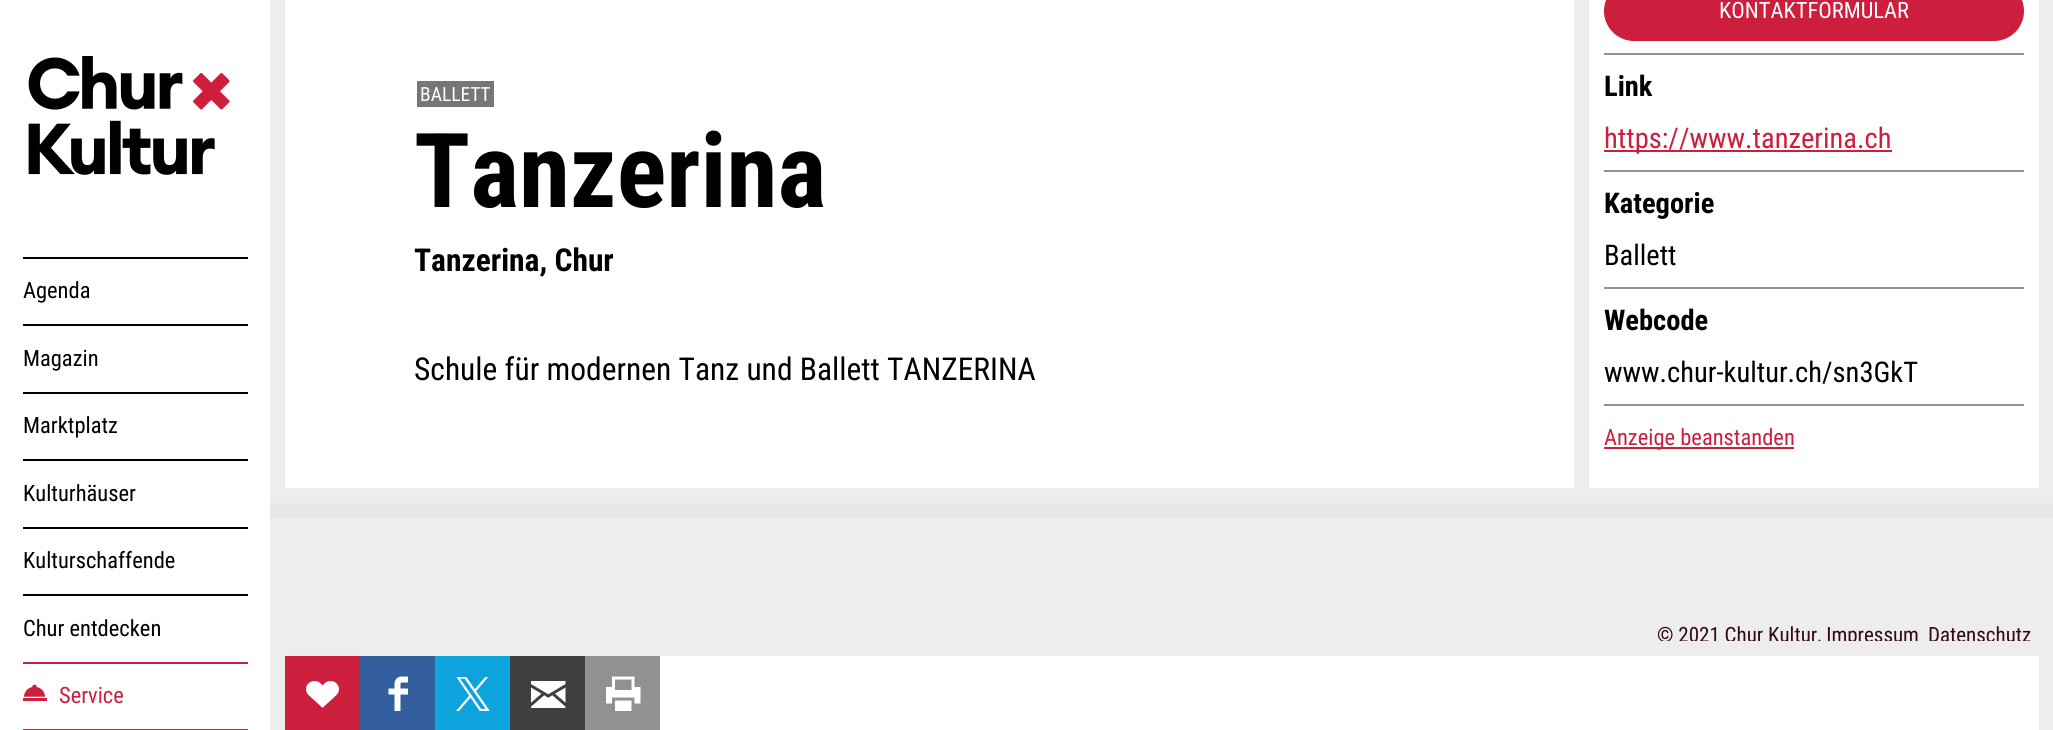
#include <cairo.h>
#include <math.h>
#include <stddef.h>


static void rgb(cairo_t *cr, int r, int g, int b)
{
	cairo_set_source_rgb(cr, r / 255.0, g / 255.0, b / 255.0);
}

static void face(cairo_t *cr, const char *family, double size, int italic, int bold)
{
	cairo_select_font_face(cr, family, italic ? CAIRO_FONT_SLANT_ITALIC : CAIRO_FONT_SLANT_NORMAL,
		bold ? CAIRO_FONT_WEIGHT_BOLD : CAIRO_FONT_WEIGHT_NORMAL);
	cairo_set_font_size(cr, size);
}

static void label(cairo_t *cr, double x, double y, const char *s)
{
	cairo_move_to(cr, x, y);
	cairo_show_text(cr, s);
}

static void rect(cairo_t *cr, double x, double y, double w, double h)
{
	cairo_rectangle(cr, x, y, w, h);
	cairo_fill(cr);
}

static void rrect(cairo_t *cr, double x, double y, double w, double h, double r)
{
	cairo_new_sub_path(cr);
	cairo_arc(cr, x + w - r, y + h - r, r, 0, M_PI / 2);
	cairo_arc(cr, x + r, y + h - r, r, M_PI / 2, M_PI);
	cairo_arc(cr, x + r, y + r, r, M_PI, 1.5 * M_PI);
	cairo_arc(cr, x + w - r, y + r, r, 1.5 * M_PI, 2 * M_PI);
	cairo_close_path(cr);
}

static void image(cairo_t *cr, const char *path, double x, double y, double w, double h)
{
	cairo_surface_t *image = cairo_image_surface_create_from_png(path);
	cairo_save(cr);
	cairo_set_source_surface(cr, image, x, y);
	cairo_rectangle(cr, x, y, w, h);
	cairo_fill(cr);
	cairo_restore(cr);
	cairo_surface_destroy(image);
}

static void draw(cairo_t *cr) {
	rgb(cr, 237, 237, 237);
	cairo_paint(cr);
	rgb(cr, 255, 255, 255);
	rect(cr, 0, 0, 270, 730);
	image(cr, "image0.png", 28, 56, 202, 119);
	rgb(cr, 0, 0, 0);
	rect(cr, 23, 257, 225, 2);
	face(cr, "Roboto Condensed", 22.5, 0, 0);
	label(cr, 23, 298, "Agenda");
	rect(cr, 23, 324, 225, 2);
	label(cr, 23, 366, "Magazin");
	rect(cr, 23, 392, 225, 2);
	label(cr, 23, 433, "Marktplatz");
	rect(cr, 23, 459, 225, 2);
	label(cr, 23, 501, "Kulturhäuser");
	rect(cr, 23, 527, 225, 2);
	label(cr, 23, 568, "Kulturschaffende");
	rect(cr, 23, 594, 225, 2);
	label(cr, 23, 636, "Chur entdecken");
	rgb(cr, 205, 30, 61);
	rect(cr, 23, 662, 225, 2);
	image(cr, "image1.png", 23, 684, 24, 17);
	label(cr, 59, 703, "Service");
	rect(cr, 23, 729, 225, 1);
	rgb(cr, 255, 255, 255);
	rect(cr, 285, 0, 1754, 488);
	rgb(cr, 119, 119, 119);
	rect(cr, 417, 81, 77, 26);
	face(cr, "Roboto Condensed", 19.5, 0, 0);
	rgb(cr, 255, 255, 255);
	label(cr, 420, 101, "BALLETT");
	face(cr, "Roboto Condensed", 103.5, 0, 1);
	rgb(cr, 0, 0, 0);
	label(cr, 414, 207, "Tanzerina");
	face(cr, "Roboto Condensed", 31.5, 0, 1);
	label(cr, 414, 271, "Tanzerina, Chur");
	face(cr, "Roboto Condensed", 31.5, 0, 0);
	label(cr, 414, 380, "Schule für modernen Tanz und Ballett TANZERINA");
	rgb(cr, 237, 237, 237);
	rect(cr, 1574, 0, 15, 488);
	rgb(cr, 145, 145, 145);
	rect(cr, 1604, 53, 420, 2);
	rgb(cr, 205, 30, 61);
	rrect(cr, 1604, -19, 420, 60, 30);
	cairo_fill(cr);
	face(cr, "Roboto Condensed", 22.5, 0, 0);
	rgb(cr, 255, 255, 255);
	label(cr, 1719, 18, "KONTAKTFORMULAR");
	rgb(cr, 145, 145, 145);
	rect(cr, 1604, 170, 420, 2);
	face(cr, "Roboto Condensed", 28.5, 0, 1);
	rgb(cr, 0, 0, 0);
	label(cr, 1604, 96, "Link");
	rgb(cr, 205, 30, 61);
	rect(cr, 1604, 150, 288, 2);
	face(cr, "Roboto Condensed", 28.5, 0, 0);
	label(cr, 1604, 148, "https://www.tanzerina.ch");
	rgb(cr, 145, 145, 145);
	rect(cr, 1604, 287, 420, 2);
	face(cr, "Roboto Condensed", 28.5, 0, 1);
	rgb(cr, 0, 0, 0);
	label(cr, 1604, 213, "Kategorie");
	face(cr, "Roboto Condensed", 28.5, 0, 0);
	label(cr, 1604, 265, "Ballett");
	rgb(cr, 145, 145, 145);
	rect(cr, 1604, 404, 420, 2);
	face(cr, "Roboto Condensed", 28.5, 0, 1);
	rgb(cr, 0, 0, 0);
	label(cr, 1604, 330, "Webcode");
	face(cr, "Roboto Condensed", 28.5, 0, 0);
	label(cr, 1604, 382, "www.chur-kultur.ch/sn3GkT");
	rgb(cr, 205, 30, 61);
	rect(cr, 1604, 447, 190, 2);
	face(cr, "Roboto Condensed", 22.5, 0, 0);
	label(cr, 1604, 445, "Anzeige beanstanden");
	rgb(cr, 231, 231, 231);
	rect(cr, 270, 503, 1783, 15);
	face(cr, "Roboto Condensed", 21, 0, 0);
	rgb(cr, 51, 8, 15);
	label(cr, 1657, 642, "© 2021 Chur Kultur, Impressum");
	label(cr, 1928, 642, "Datenschutz");
	rgb(cr, 237, 237, 237);
	rect(cr, 1661, 641, 370, 6);
	rgb(cr, 255, 255, 255);
	rect(cr, 660, 656, 1379, 74);
	rgb(cr, 205, 30, 61);
	rect(cr, 285, 656, 75, 74);
	image(cr, "image2.png", 306, 681, 33, 27);
	rgb(cr, 51, 95, 158);
	rect(cr, 360, 656, 75, 74);
	image(cr, "image3.png", 388, 676, 20, 35);
	rgb(cr, 13, 164, 222);
	rect(cr, 435, 656, 75, 74);
	image(cr, "image4.png", 456, 677, 34, 34);
	rgb(cr, 63, 63, 63);
	rect(cr, 510, 656, 75, 74);
	image(cr, "image5.png", 531, 681, 35, 27);
	rgb(cr, 145, 145, 145);
	rect(cr, 585, 656, 75, 74);
	image(cr, "image6.png", 606, 676, 35, 35);
}

int main(void) {
	cairo_surface_t *surface = cairo_image_surface_create(CAIRO_FORMAT_RGB24, 2053, 730);
	cairo_t *cr = cairo_create(surface);
	cairo_font_options_t *options = cairo_font_options_create();
	cairo_font_options_set_hint_metrics(options, CAIRO_HINT_METRICS_OFF);
	cairo_font_options_set_hint_style(options, CAIRO_HINT_STYLE_NONE);
	cairo_set_font_options(cr, options);
	cairo_set_miter_limit(cr, 4);
	draw(cr);
	cairo_surface_write_to_png(surface, "render.png");
	cairo_font_options_destroy(options);
	cairo_destroy(cr);
	cairo_surface_destroy(surface);
	return 0;
}
